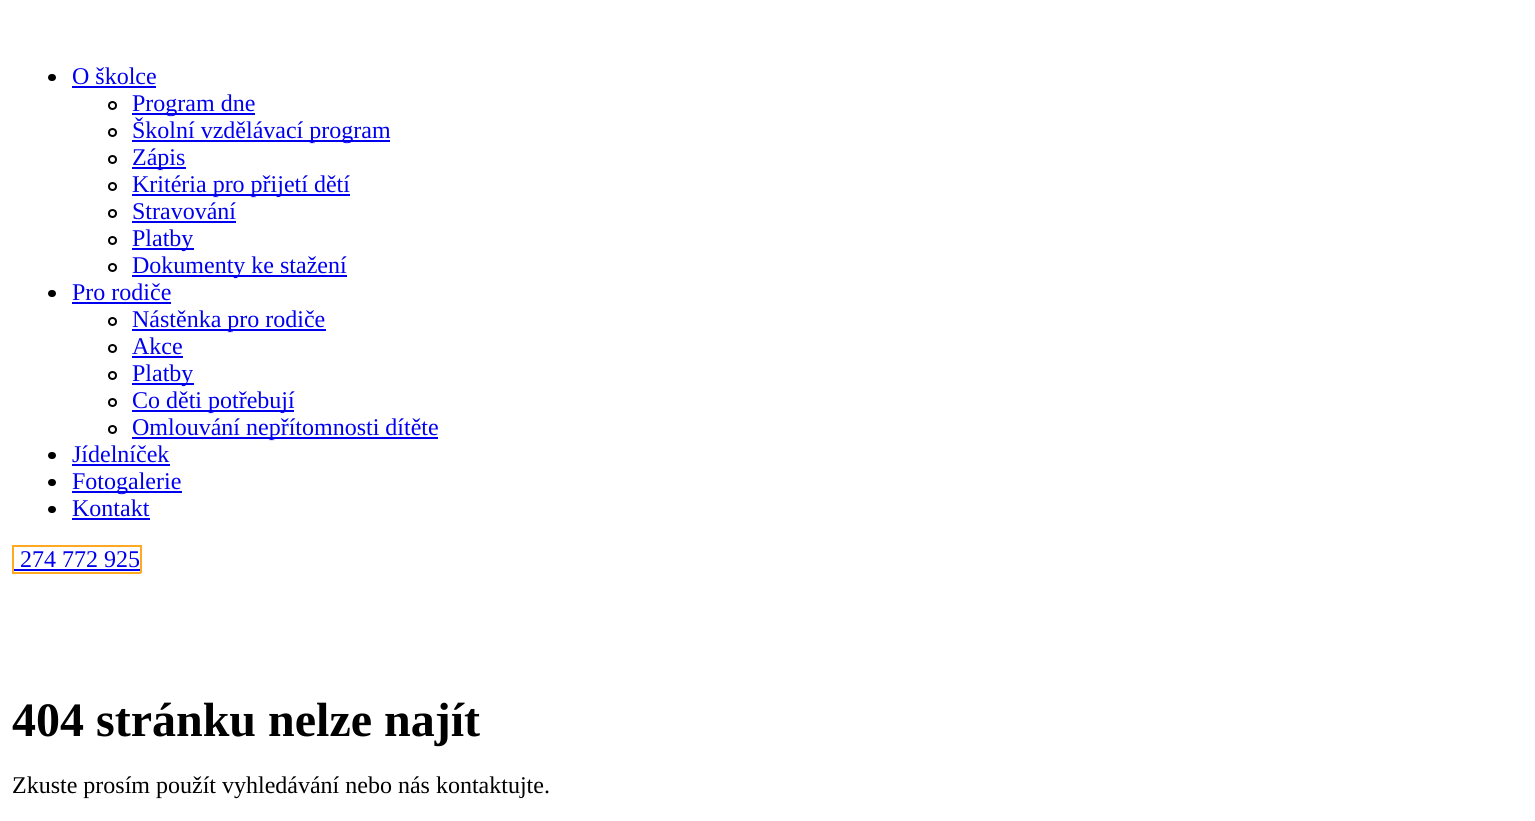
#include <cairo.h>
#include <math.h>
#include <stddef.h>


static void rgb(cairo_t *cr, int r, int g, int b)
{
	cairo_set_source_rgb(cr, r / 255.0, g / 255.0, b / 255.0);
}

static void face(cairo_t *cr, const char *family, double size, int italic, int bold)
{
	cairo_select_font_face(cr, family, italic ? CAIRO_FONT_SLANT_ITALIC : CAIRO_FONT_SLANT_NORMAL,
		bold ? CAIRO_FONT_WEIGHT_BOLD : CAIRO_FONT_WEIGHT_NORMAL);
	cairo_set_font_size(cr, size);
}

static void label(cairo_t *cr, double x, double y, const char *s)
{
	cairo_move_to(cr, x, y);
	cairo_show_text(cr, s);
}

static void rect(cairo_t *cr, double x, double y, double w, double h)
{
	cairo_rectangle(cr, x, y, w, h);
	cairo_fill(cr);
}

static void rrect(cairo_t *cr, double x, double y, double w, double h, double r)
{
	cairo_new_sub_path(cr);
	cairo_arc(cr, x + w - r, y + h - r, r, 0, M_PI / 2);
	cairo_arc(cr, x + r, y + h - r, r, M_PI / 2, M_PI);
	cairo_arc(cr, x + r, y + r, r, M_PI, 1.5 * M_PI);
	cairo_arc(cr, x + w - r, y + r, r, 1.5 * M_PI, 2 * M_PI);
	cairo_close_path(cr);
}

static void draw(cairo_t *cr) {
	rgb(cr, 255, 255, 255);
	cairo_paint(cr);
	rgb(cr, 0, 0, 0);
	rrect(cr, 48, 74, 8, 7, 3.5);
	cairo_fill(cr);
	face(cr, "Liberation Serif", 24, 0, 0);
	rgb(cr, 0, 0, 238);
	label(cr, 72, 84, "O školce");
	rect(cr, 72, 86, 84, 2);
	cairo_new_path(cr);
	cairo_arc(cr, 112.5, 105.5, 3.5, 0, 2 * M_PI);
	rgb(cr, 0, 0, 0);
	cairo_stroke(cr);
	rgb(cr, 0, 0, 238);
	rect(cr, 132, 113, 123, 2);
	label(cr, 132, 111, "Program dne");
	cairo_new_path(cr);
	cairo_arc(cr, 112.5, 132.5, 3.5, 0, 2 * M_PI);
	rgb(cr, 0, 0, 0);
	cairo_stroke(cr);
	rgb(cr, 0, 0, 238);
	rect(cr, 132, 140, 258, 2);
	label(cr, 132, 138, "Školní vzdělávací program");
	cairo_new_path(cr);
	cairo_arc(cr, 112.5, 159.5, 3.5, 0, 2 * M_PI);
	rgb(cr, 0, 0, 0);
	cairo_stroke(cr);
	rgb(cr, 0, 0, 238);
	rect(cr, 132, 167, 54, 2);
	label(cr, 132, 165, "Zápis");
	cairo_new_path(cr);
	cairo_arc(cr, 112.5, 186.5, 3.5, 0, 2 * M_PI);
	rgb(cr, 0, 0, 0);
	cairo_stroke(cr);
	rgb(cr, 0, 0, 238);
	rect(cr, 132, 194, 218, 2);
	label(cr, 132, 192, "Kritéria pro přijetí dětí");
	cairo_new_path(cr);
	cairo_arc(cr, 112.5, 213.5, 3.5, 0, 2 * M_PI);
	rgb(cr, 0, 0, 0);
	cairo_stroke(cr);
	rgb(cr, 0, 0, 238);
	label(cr, 132, 219, "Stravování");
	rect(cr, 132, 221, 104, 2);
	cairo_new_path(cr);
	cairo_arc(cr, 112.5, 240.5, 3.5, 0, 2 * M_PI);
	rgb(cr, 0, 0, 0);
	cairo_stroke(cr);
	rgb(cr, 0, 0, 238);
	rect(cr, 132, 248, 62, 2);
	label(cr, 132, 246, "Platby");
	cairo_new_path(cr);
	cairo_arc(cr, 112.5, 267.5, 3.5, 0, 2 * M_PI);
	rgb(cr, 0, 0, 0);
	cairo_stroke(cr);
	rgb(cr, 0, 0, 238);
	rect(cr, 132, 275, 215, 2);
	label(cr, 132, 273, "Dokumenty ke stažení");
	rgb(cr, 0, 0, 0);
	rrect(cr, 48, 290, 8, 7, 3.5);
	cairo_fill(cr);
	rgb(cr, 0, 0, 238);
	label(cr, 72, 300, "Pro rodiče");
	rect(cr, 72, 302, 99, 2);
	cairo_new_path(cr);
	cairo_arc(cr, 112.5, 321.5, 3.5, 0, 2 * M_PI);
	rgb(cr, 0, 0, 0);
	cairo_stroke(cr);
	rgb(cr, 0, 0, 238);
	rect(cr, 132, 329, 194, 2);
	label(cr, 132, 327, "Nástěnka pro rodiče");
	cairo_new_path(cr);
	cairo_arc(cr, 112.5, 348.5, 3.5, 0, 2 * M_PI);
	rgb(cr, 0, 0, 0);
	cairo_stroke(cr);
	rgb(cr, 0, 0, 238);
	label(cr, 132, 354, "Akce");
	rect(cr, 132, 356, 51, 2);
	cairo_new_path(cr);
	cairo_arc(cr, 112.5, 375.5, 3.5, 0, 2 * M_PI);
	rgb(cr, 0, 0, 0);
	cairo_stroke(cr);
	rgb(cr, 0, 0, 238);
	rect(cr, 132, 383, 62, 2);
	label(cr, 132, 381, "Platby");
	cairo_new_path(cr);
	cairo_arc(cr, 112.5, 402.5, 3.5, 0, 2 * M_PI);
	rgb(cr, 0, 0, 0);
	cairo_stroke(cr);
	rgb(cr, 0, 0, 238);
	rect(cr, 132, 410, 162, 2);
	label(cr, 132, 408, "Co děti potřebují");
	cairo_new_path(cr);
	cairo_arc(cr, 112.5, 429.5, 3.5, 0, 2 * M_PI);
	rgb(cr, 0, 0, 0);
	cairo_stroke(cr);
	rgb(cr, 0, 0, 238);
	rect(cr, 132, 437, 306, 2);
	label(cr, 132, 435, "Omlouvání nepřítomnosti dítěte");
	rgb(cr, 0, 0, 0);
	rrect(cr, 48, 452, 8, 7, 3.5);
	cairo_fill(cr);
	rgb(cr, 0, 0, 238);
	label(cr, 72, 462, "Jídelníček");
	rect(cr, 72, 464, 98, 2);
	rgb(cr, 0, 0, 0);
	rrect(cr, 48, 479, 8, 7, 3.5);
	cairo_fill(cr);
	rgb(cr, 0, 0, 238);
	rect(cr, 72, 491, 110, 2);
	label(cr, 72, 489, "Fotogalerie");
	rgb(cr, 0, 0, 0);
	rrect(cr, 48, 506, 8, 7, 3.5);
	cairo_fill(cr);
	rgb(cr, 0, 0, 238);
	label(cr, 72, 516, "Kontakt");
	rect(cr, 72, 518, 78, 2);
	label(cr, 20, 567, "274 772 925");
	rgb(cr, 255, 169, 35);
	rect(cr, 12, 545, 2, 29);
	rect(cr, 14, 545, 127, 2);
	rect(cr, 140, 545, 2, 28);
	rect(cr, 14, 572, 127, 2);
	rgb(cr, 0, 0, 238);
	rect(cr, 14, 569, 126, 2);
	face(cr, "Liberation Serif", 48, 0, 1);
	rgb(cr, 0, 0, 0);
	label(cr, 12, 736, "404 stránku nelze najít");
	face(cr, "Liberation Serif", 24, 0, 0);
	label(cr, 12, 793, "Zkuste prosím použít vyhledávání nebo nás kontaktujte.");
}

int main(void) {
	cairo_surface_t *surface = cairo_image_surface_create(CAIRO_FORMAT_RGB24, 1535, 821);
	cairo_t *cr = cairo_create(surface);
	cairo_font_options_t *options = cairo_font_options_create();
	cairo_font_options_set_hint_metrics(options, CAIRO_HINT_METRICS_OFF);
	cairo_font_options_set_hint_style(options, CAIRO_HINT_STYLE_NONE);
	cairo_set_font_options(cr, options);
	cairo_set_miter_limit(cr, 4);
	draw(cr);
	cairo_surface_write_to_png(surface, "render.png");
	cairo_font_options_destroy(options);
	cairo_destroy(cr);
	cairo_surface_destroy(surface);
	return 0;
}
